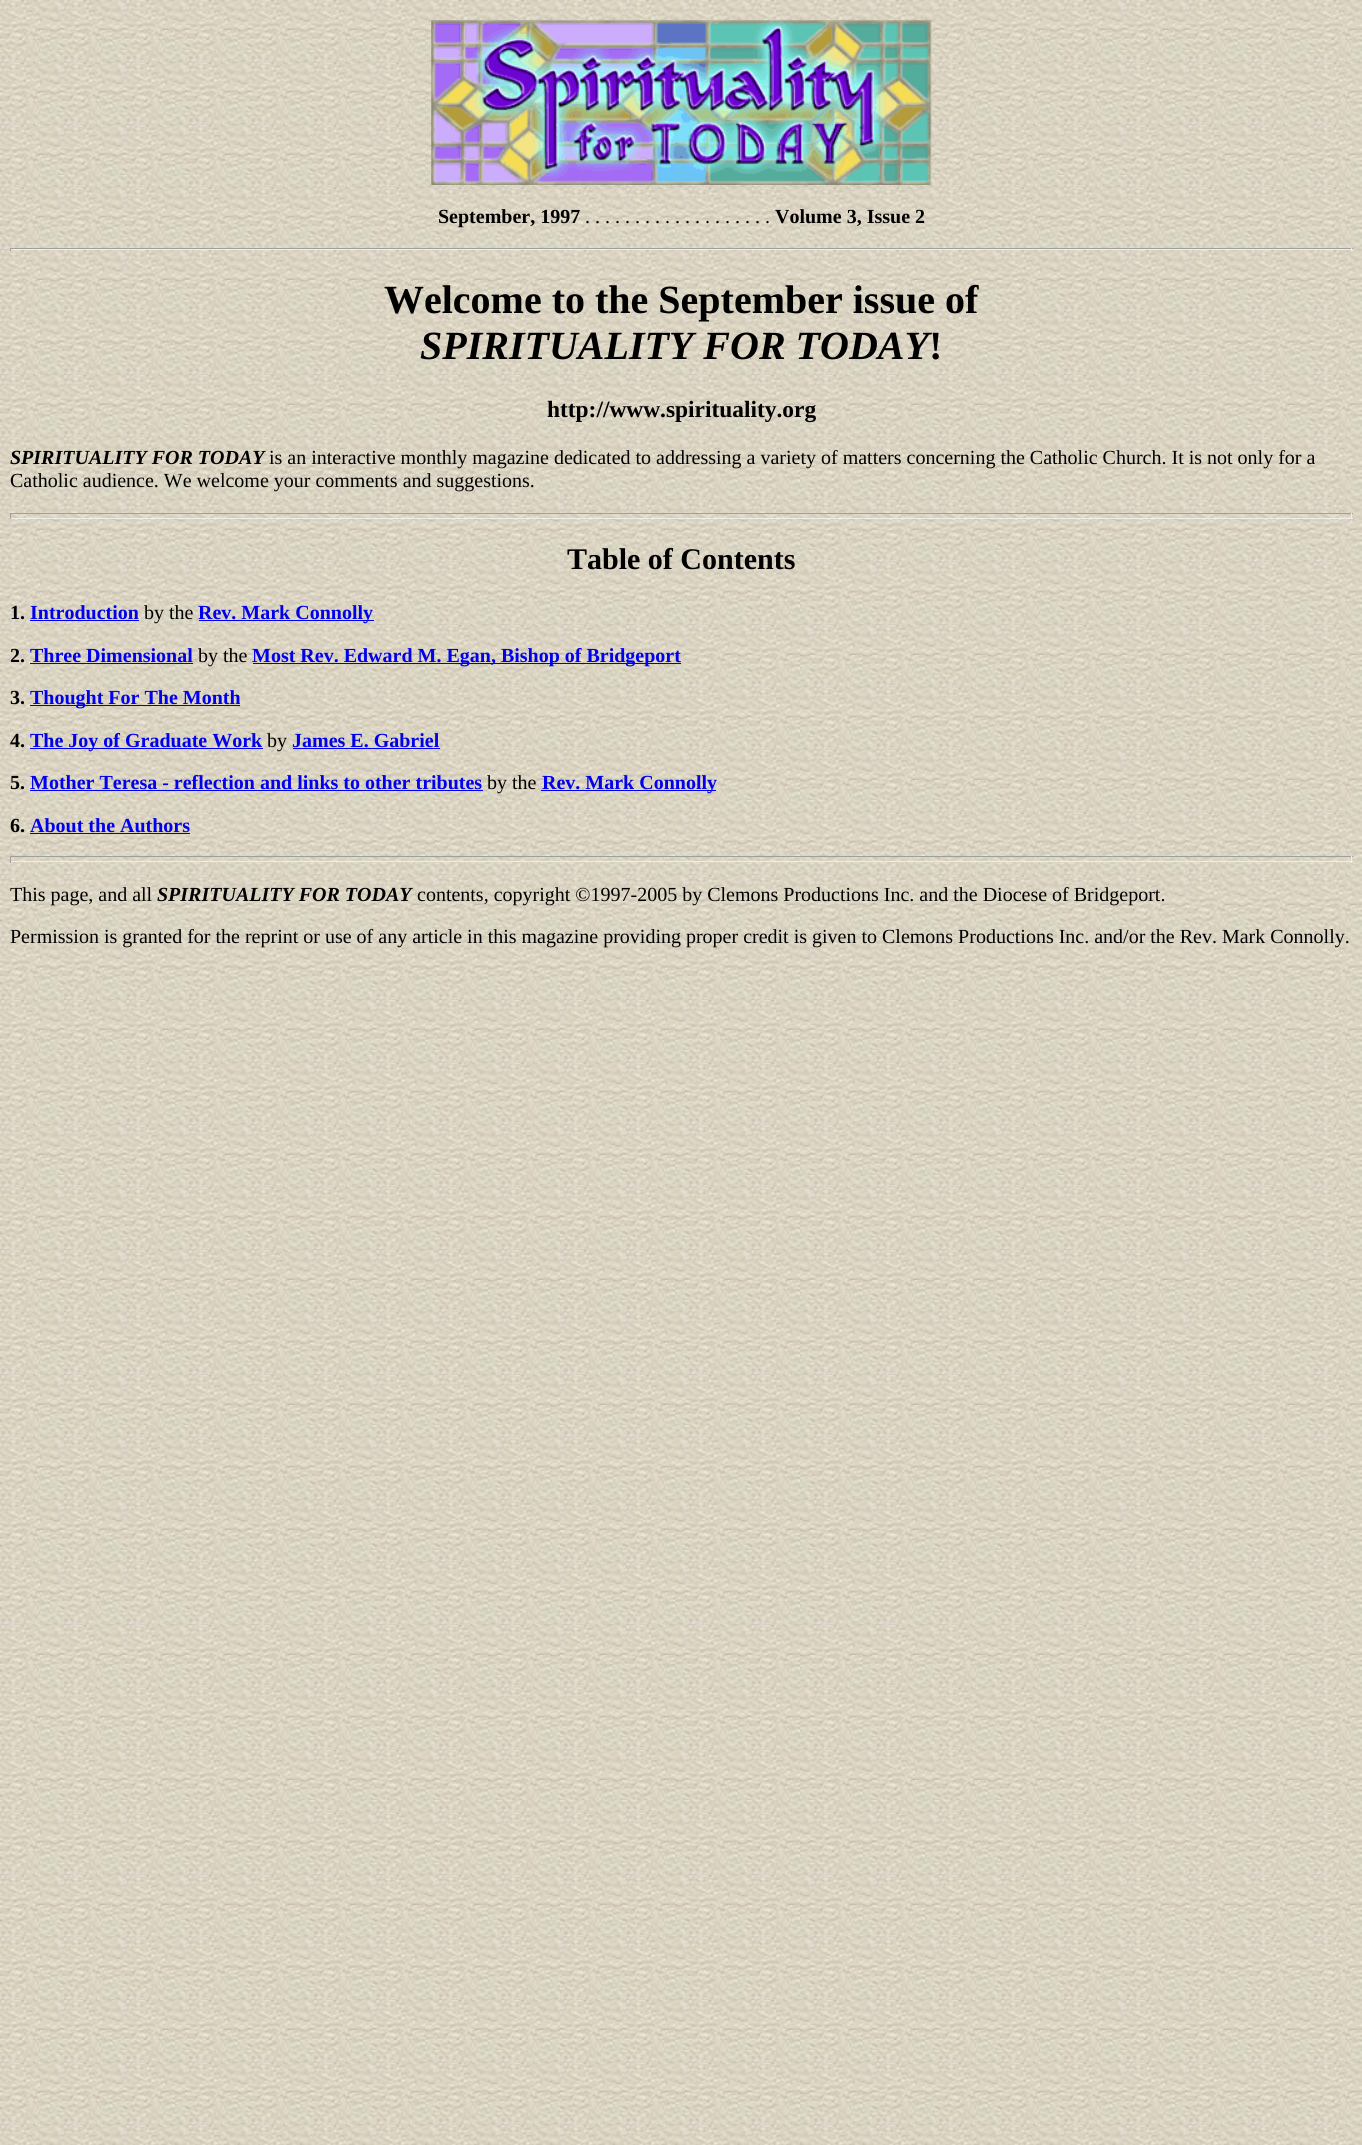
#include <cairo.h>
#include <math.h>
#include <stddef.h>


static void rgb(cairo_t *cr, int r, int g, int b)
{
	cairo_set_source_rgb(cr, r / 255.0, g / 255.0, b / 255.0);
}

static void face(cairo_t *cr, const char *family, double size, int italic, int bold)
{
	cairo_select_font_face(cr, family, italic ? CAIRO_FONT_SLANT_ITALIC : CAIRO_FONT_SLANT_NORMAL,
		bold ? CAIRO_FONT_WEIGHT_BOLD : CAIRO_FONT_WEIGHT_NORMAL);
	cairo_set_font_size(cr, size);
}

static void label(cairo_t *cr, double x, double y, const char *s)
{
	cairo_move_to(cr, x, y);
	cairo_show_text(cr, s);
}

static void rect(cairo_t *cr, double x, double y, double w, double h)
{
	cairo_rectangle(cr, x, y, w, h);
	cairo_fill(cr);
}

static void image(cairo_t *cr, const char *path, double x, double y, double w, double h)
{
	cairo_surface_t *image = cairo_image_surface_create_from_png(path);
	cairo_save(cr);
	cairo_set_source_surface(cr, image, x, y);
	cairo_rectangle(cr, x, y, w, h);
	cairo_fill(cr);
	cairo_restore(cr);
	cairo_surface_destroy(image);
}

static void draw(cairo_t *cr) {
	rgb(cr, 255, 255, 255);
	cairo_paint(cr);
	image(cr, "image0.png", 0, 0, 1362, 2145);
	image(cr, "image1.png", 431, 20, 501, 165);
	face(cr, "Liberation Serif", 20, 0, 1);
	rgb(cr, 0, 0, 0);
	label(cr, 438, 223, "September, 1997");
	face(cr, "Liberation Serif", 20, 0, 0);
	label(cr, 585, 223, ". . . . . . . . . . . . . . . . . . .");
	face(cr, "Liberation Serif", 20, 0, 1);
	label(cr, 775, 223, "Volume 3, Issue 2");
	rgb(cr, 159, 159, 159);
	rect(cr, 10, 248, 1343, 1);
	rgb(cr, 238, 238, 238);
	rect(cr, 1351, 248, 1, 3);
	rect(cr, 10, 249, 1343, 1);
	rgb(cr, 159, 159, 159);
	rect(cr, 10, 248, 1, 3);
	face(cr, "Liberation Serif", 40, 0, 1);
	rgb(cr, 0, 0, 0);
	label(cr, 384, 313, "Welcome to the September issue of");
	face(cr, "Liberation Serif", 40, 1, 1);
	label(cr, 420, 359, "SPIRITUALITY FOR TODAY");
	face(cr, "Liberation Serif", 40, 0, 1);
	label(cr, 929, 359, "!");
	face(cr, "Liberation Serif", 23.4, 0, 1);
	label(cr, 547, 417, "http://www.spirituality.org");
	face(cr, "Liberation Serif", 20, 1, 1);
	label(cr, 10, 464, "SPIRITUALITY FOR TODAY");
	face(cr, "Liberation Serif", 20, 0, 0);
	label(cr, 269, 464, "is an interactive monthly magazine dedicated to addressing a variety of matters concerning the Catholic Church. It is not only for a");
	label(cr, 10, 487, "Catholic audience. We welcome your comments and suggestions.");
	rgb(cr, 159, 159, 159);
	rect(cr, 10, 513, 1343, 1);
	rgb(cr, 238, 238, 238);
	rect(cr, 1351, 513, 1, 6);
	rect(cr, 10, 518, 1343, 1);
	rgb(cr, 159, 159, 159);
	rect(cr, 10, 513, 1, 6);
	face(cr, "Liberation Serif", 30, 0, 1);
	rgb(cr, 0, 0, 0);
	label(cr, 567, 569, "Table of Contents");
	face(cr, "Liberation Serif", 20, 0, 1);
	label(cr, 10, 619, "1.");
	rgb(cr, 0, 0, 238);
	label(cr, 30, 619, "Introduction");
	rect(cr, 30, 620, 109, 1);
	face(cr, "Liberation Serif", 20, 0, 0);
	rgb(cr, 0, 0, 0);
	label(cr, 144, 619, "by the");
	rgb(cr, 0, 0, 238);
	rect(cr, 199, 620, 175, 1);
	face(cr, "Liberation Serif", 20, 0, 1);
	label(cr, 198, 619, "Rev. Mark Connolly");
	rgb(cr, 0, 0, 0);
	label(cr, 10, 662, "2.");
	rgb(cr, 0, 0, 238);
	label(cr, 30, 662, "Three Dimensional");
	rect(cr, 30, 663, 163, 1);
	face(cr, "Liberation Serif", 20, 0, 0);
	rgb(cr, 0, 0, 0);
	label(cr, 198, 662, "by the");
	rgb(cr, 0, 0, 238);
	rect(cr, 253, 663, 428, 1);
	face(cr, "Liberation Serif", 20, 0, 1);
	label(cr, 252, 662, "Most Rev. Edward M. Egan, Bishop of Bridgeport");
	rgb(cr, 0, 0, 0);
	label(cr, 10, 704, "3.");
	rgb(cr, 0, 0, 238);
	rect(cr, 30, 705, 210, 1);
	label(cr, 30, 704, "Thought For The Month");
	rgb(cr, 0, 0, 0);
	label(cr, 10, 747, "4.");
	rgb(cr, 0, 0, 238);
	rect(cr, 30, 748, 233, 1);
	label(cr, 30, 747, "The Joy of Graduate Work");
	face(cr, "Liberation Serif", 20, 0, 0);
	rgb(cr, 0, 0, 0);
	label(cr, 267, 747, "by");
	face(cr, "Liberation Serif", 20, 0, 1);
	rgb(cr, 0, 0, 238);
	label(cr, 292, 747, "James E. Gabriel");
	rect(cr, 293, 748, 147, 1);
	rgb(cr, 0, 0, 0);
	label(cr, 10, 789, "5.");
	rgb(cr, 0, 0, 238);
	label(cr, 30, 789, "Mother Teresa - reflection and links to other tributes");
	rect(cr, 30, 790, 453, 1);
	face(cr, "Liberation Serif", 20, 0, 0);
	rgb(cr, 0, 0, 0);
	label(cr, 487, 789, "by the");
	rgb(cr, 0, 0, 238);
	rect(cr, 541, 790, 175, 1);
	face(cr, "Liberation Serif", 20, 0, 1);
	label(cr, 542, 789, "Rev. Mark Connolly");
	rgb(cr, 0, 0, 0);
	label(cr, 10, 832, "6.");
	rgb(cr, 0, 0, 238);
	label(cr, 30, 832, "About the Authors");
	rect(cr, 30, 833, 160, 1);
	rgb(cr, 159, 159, 159);
	rect(cr, 10, 856, 1343, 1);
	rgb(cr, 238, 238, 238);
	rect(cr, 1351, 856, 1, 7);
	rect(cr, 10, 861, 1343, 1);
	rgb(cr, 159, 159, 159);
	rect(cr, 10, 856, 1, 7);
	face(cr, "Liberation Serif", 20, 0, 0);
	rgb(cr, 0, 0, 0);
	label(cr, 10, 901, "This page, and all");
	face(cr, "Liberation Serif", 20, 1, 1);
	label(cr, 157, 901, "SPIRITUALITY FOR TODAY");
	face(cr, "Liberation Serif", 20, 0, 0);
	label(cr, 417, 901, "contents, copyright ©1997-2005 by Clemons Productions Inc. and the Diocese of Bridgeport.");
	label(cr, 10, 943, "Permission is granted for the reprint or use of any article in this magazine providing proper credit is given to Clemons Productions Inc. and/or the Rev. Mark Connolly.");
}

int main(void) {
	cairo_surface_t *surface = cairo_image_surface_create(CAIRO_FORMAT_RGB24, 1362, 2145);
	cairo_t *cr = cairo_create(surface);
	cairo_font_options_t *options = cairo_font_options_create();
	cairo_font_options_set_hint_metrics(options, CAIRO_HINT_METRICS_OFF);
	cairo_font_options_set_hint_style(options, CAIRO_HINT_STYLE_NONE);
	cairo_set_font_options(cr, options);
	cairo_set_miter_limit(cr, 4);
	draw(cr);
	cairo_surface_write_to_png(surface, "render.png");
	cairo_font_options_destroy(options);
	cairo_destroy(cr);
	cairo_surface_destroy(surface);
	return 0;
}
